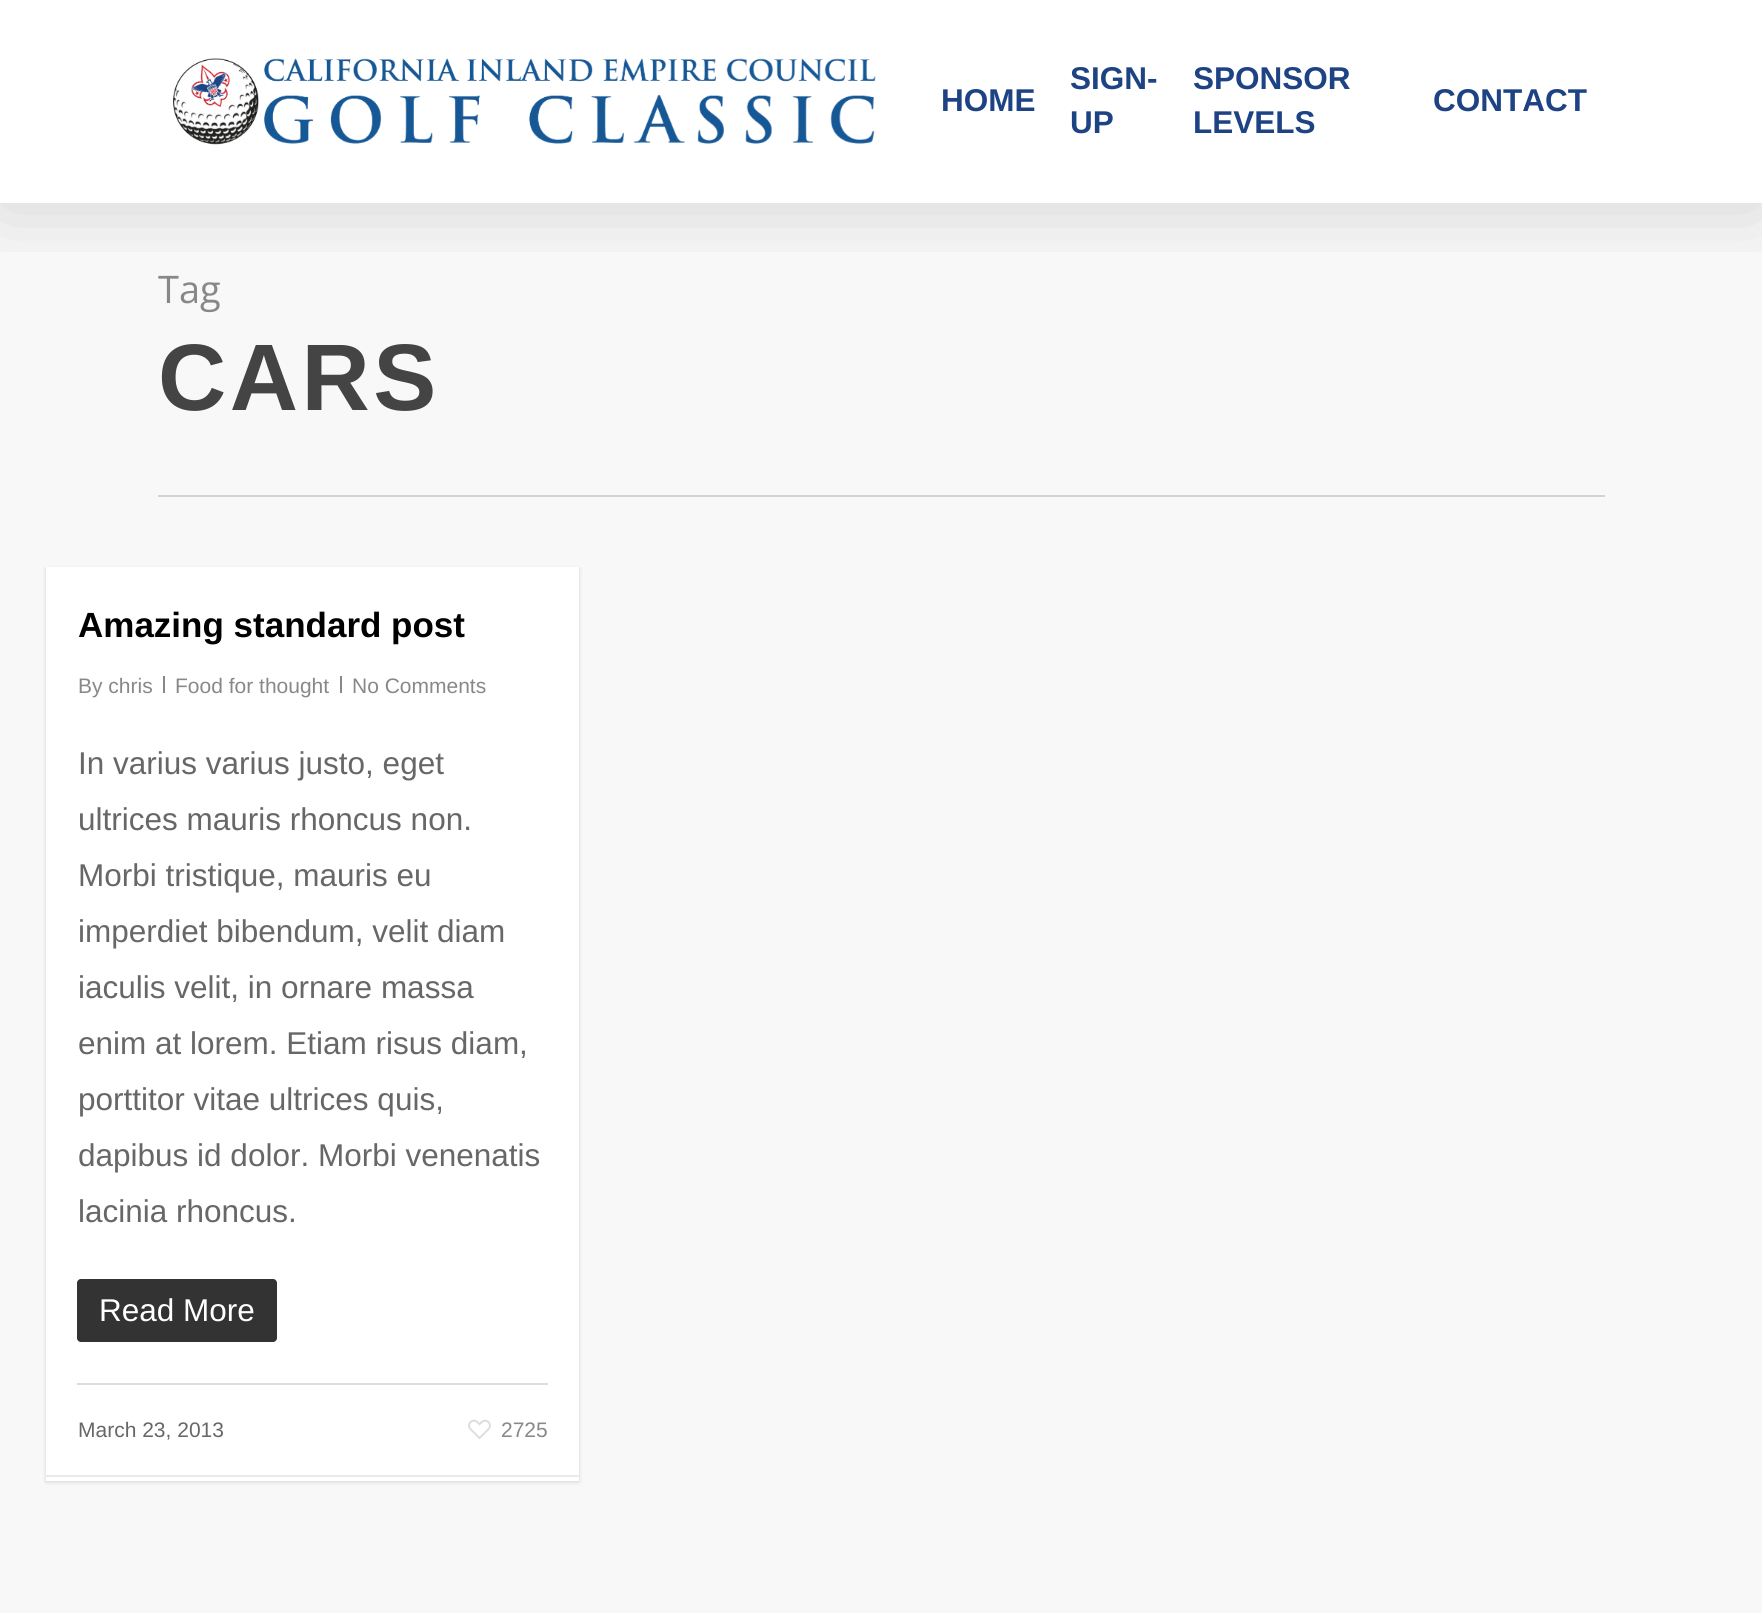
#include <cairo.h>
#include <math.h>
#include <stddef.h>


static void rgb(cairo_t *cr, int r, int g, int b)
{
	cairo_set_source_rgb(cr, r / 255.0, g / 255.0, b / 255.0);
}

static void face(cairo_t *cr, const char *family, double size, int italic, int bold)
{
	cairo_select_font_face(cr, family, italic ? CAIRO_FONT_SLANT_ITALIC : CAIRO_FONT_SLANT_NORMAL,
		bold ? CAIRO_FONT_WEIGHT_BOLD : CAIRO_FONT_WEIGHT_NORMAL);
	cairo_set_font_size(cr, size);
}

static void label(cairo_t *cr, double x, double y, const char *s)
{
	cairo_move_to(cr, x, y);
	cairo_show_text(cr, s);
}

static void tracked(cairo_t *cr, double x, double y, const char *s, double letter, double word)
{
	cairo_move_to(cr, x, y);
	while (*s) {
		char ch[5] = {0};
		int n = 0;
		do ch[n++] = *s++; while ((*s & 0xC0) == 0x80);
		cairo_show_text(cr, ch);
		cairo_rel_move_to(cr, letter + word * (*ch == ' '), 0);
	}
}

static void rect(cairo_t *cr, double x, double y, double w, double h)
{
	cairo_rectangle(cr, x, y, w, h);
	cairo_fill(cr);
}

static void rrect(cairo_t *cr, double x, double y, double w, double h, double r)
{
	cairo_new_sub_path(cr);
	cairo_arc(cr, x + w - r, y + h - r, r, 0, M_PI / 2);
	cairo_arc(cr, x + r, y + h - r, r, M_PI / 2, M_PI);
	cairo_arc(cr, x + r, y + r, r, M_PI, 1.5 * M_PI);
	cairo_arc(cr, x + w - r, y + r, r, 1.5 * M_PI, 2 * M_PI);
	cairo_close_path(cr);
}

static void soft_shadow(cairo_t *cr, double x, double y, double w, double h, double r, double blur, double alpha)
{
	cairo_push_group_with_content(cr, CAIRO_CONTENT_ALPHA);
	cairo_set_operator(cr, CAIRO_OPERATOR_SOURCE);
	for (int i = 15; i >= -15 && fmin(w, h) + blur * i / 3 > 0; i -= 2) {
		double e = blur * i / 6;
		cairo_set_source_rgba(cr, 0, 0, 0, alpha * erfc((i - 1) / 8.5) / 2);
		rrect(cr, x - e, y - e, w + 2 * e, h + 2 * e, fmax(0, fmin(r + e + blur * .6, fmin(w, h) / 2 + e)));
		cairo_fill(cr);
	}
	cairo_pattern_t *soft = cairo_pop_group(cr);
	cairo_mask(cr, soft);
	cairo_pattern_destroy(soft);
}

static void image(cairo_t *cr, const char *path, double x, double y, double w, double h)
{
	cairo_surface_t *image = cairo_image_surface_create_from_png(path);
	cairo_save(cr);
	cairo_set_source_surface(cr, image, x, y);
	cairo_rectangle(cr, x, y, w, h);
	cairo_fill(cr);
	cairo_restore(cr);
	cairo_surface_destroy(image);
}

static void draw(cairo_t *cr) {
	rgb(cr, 255, 255, 255);
	cairo_paint(cr);
	rgb(cr, 248, 248, 248);
	rect(cr, 0, 203, 1762, 1410);
	cairo_save(cr);
	cairo_rectangle(cr, 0, 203, 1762, 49);
	cairo_clip(cr);
	rgb(cr, 0, 0, 0);
	soft_shadow(cr, 0, 5, 1762, 203, 0, 39.5, 0.15);
	cairo_restore(cr);
	image(cr, "image0.png", 173, 58, 703, 87);
	face(cr, "Liberation Sans", 31.5, 0, 1);
	rgb(cr, 29, 67, 132);
	label(cr, 941, 111, "HOME");
	label(cr, 1070, 89, "SIGN-");
	label(cr, 1070, 133, "UP");
	label(cr, 1193, 89, "SPONSOR");
	label(cr, 1193, 133, "LEVELS");
	label(cr, 1433, 111, "CONTACT");
	rgb(cr, 211, 211, 211);
	rect(cr, 158, 495, 1447, 2);
	face(cr, "Open Sans", 38, 0, 0);
	rgb(cr, 136, 136, 136);
	label(cr, 158, 303, "Tag");
	face(cr, "Liberation Sans", 94.5, 0, 1);
	rgb(cr, 68, 68, 68);
	tracked(cr, 158, 410, "CARS", 3.5, 0);
	rgb(cr, 0, 0, 0);
	soft_shadow(cr, 46, 569, 533, 913, 0, 2, 0.15);
	rgb(cr, 255, 255, 255);
	rect(cr, 46, 567, 533, 914);
	rgb(cr, 221, 221, 221);
	rect(cr, 77, 1383, 471, 2);
	face(cr, "Liberation Sans", 35, 0, 1);
	rgb(cr, 0, 0, 0);
	label(cr, 78, 637, "Amazing standard post");
	face(cr, "Liberation Sans", 21, 0, 0);
	rgb(cr, 136, 136, 136);
	label(cr, 78, 693, "By chris");
	rect(cr, 163, 676, 2, 17);
	label(cr, 175, 693, "Food for thought");
	rect(cr, 340, 676, 2, 17);
	label(cr, 352, 693, "No Comments");
	face(cr, "Liberation Sans", 31.5, 0, 0);
	rgb(cr, 103, 103, 103);
	label(cr, 78, 774, "In varius varius justo, eget");
	label(cr, 78, 830, "ultrices mauris rhoncus non.");
	label(cr, 78, 886, "Morbi tristique, mauris eu");
	label(cr, 78, 942, "imperdiet bibendum, velit diam");
	label(cr, 78, 998, "iaculis velit, in ornare massa");
	label(cr, 78, 1054, "enim at lorem. Etiam risus diam,");
	label(cr, 78, 1110, "porttitor vitae ultrices quis,");
	label(cr, 78, 1166, "dapibus id dolor. Morbi venenatis");
	label(cr, 78, 1222, "lacinia rhoncus.");
	rgb(cr, 51, 51, 51);
	rrect(cr, 77, 1279, 200, 63, 4);
	cairo_fill(cr);
	rgb(cr, 255, 255, 255);
	label(cr, 99, 1321, "Read More");
	face(cr, "Liberation Sans", 21, 0, 0);
	rgb(cr, 103, 103, 103);
	label(cr, 78, 1437, "March 23, 2013");
	image(cr, "image1.png", 468, 1419, 23, 21);
	rgb(cr, 136, 136, 136);
	label(cr, 501, 1437, "2725");
	rgb(cr, 234, 234, 234);
	rect(cr, 46, 1475, 533, 2);
}

int main(void) {
	cairo_surface_t *surface = cairo_image_surface_create(CAIRO_FORMAT_RGB24, 1762, 1613);
	cairo_t *cr = cairo_create(surface);
	cairo_font_options_t *options = cairo_font_options_create();
	cairo_font_options_set_hint_metrics(options, CAIRO_HINT_METRICS_OFF);
	cairo_font_options_set_hint_style(options, CAIRO_HINT_STYLE_NONE);
	cairo_set_font_options(cr, options);
	cairo_set_miter_limit(cr, 4);
	draw(cr);
	cairo_surface_write_to_png(surface, "render.png");
	cairo_font_options_destroy(options);
	cairo_destroy(cr);
	cairo_surface_destroy(surface);
	return 0;
}
